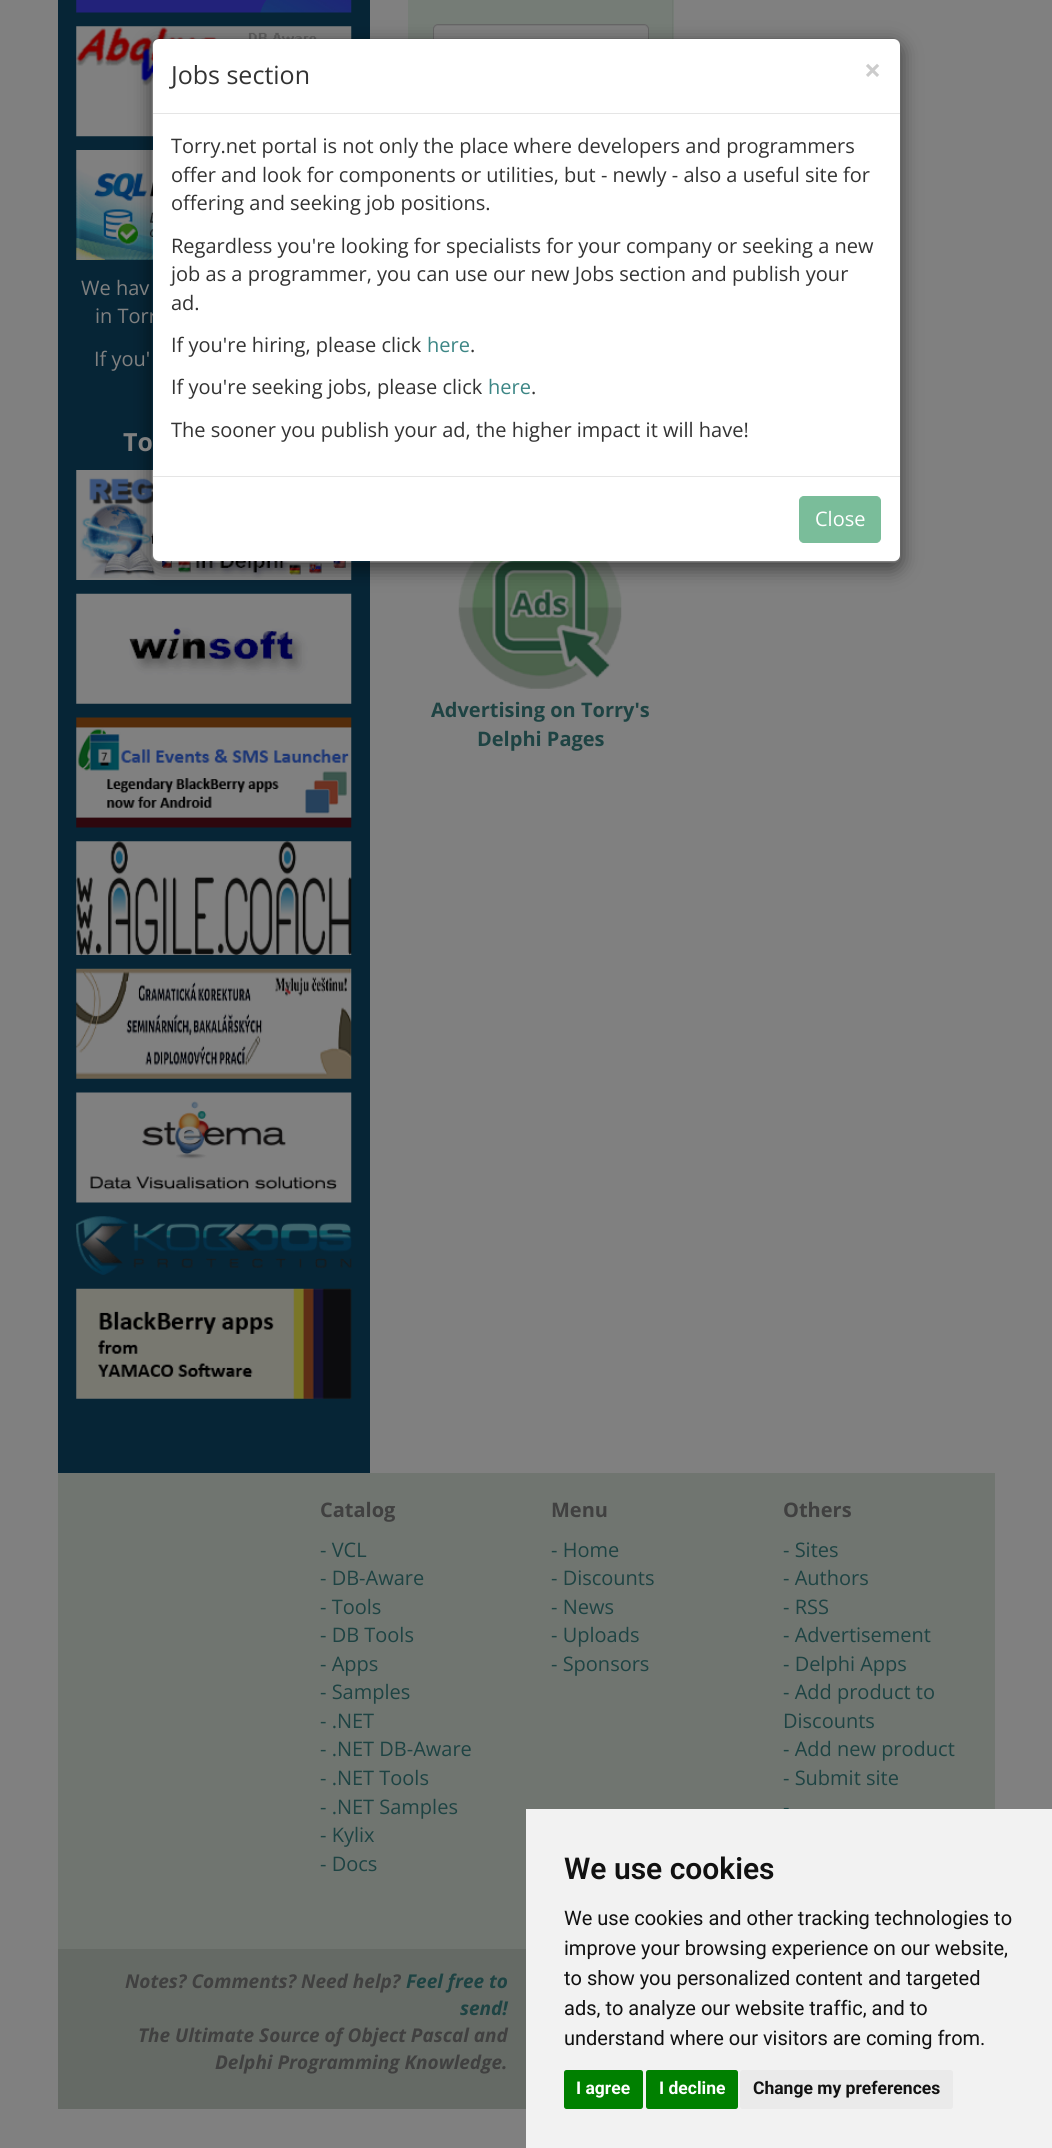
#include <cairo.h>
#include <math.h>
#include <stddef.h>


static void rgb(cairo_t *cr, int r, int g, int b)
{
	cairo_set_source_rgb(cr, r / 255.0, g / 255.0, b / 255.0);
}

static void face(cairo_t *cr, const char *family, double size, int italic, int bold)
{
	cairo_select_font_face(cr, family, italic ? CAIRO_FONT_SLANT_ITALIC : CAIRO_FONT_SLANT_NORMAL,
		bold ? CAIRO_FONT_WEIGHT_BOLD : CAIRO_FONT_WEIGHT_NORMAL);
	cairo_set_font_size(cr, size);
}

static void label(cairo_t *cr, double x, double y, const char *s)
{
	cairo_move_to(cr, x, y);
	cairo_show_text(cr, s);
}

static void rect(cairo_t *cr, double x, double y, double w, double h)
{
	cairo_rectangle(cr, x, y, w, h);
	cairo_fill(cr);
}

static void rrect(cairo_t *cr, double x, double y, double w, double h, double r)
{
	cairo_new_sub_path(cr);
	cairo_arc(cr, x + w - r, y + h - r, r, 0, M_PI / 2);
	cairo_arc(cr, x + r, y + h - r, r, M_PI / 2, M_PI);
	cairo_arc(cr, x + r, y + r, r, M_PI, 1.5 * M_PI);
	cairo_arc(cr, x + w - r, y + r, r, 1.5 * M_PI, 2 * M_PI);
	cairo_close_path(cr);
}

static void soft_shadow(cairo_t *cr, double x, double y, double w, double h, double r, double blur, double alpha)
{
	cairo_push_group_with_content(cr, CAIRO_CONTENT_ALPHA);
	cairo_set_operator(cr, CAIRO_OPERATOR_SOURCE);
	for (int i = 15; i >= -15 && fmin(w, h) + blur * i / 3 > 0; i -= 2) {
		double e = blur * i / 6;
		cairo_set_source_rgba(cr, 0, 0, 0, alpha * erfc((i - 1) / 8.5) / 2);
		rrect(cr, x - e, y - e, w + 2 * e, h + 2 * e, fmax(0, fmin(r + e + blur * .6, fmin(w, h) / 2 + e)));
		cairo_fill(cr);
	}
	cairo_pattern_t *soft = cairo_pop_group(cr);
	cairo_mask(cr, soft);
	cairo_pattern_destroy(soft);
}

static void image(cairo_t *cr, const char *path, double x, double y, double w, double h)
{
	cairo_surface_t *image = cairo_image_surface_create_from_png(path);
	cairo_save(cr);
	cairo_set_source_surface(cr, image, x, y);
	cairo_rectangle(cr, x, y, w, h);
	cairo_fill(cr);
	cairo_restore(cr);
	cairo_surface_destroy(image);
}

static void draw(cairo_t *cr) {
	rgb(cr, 128, 128, 128);
	cairo_paint(cr);
	rgb(cr, 6, 37, 54);
	rect(cr, 58, 0, 312, 1473);
	image(cr, "image1.png", 76, 26, 276, 111);
	image(cr, "image2.png", 76, 150, 77, 110);
	image(cr, "image3.png", 76, 470, 276, 110);
	image(cr, "image4.png", 76, 593, 276, 111);
	rgb(cr, 117, 124, 118);
	rect(cr, 409, 0, 263, 39);
	rgb(cr, 111, 118, 112);
	cairo_new_path(cr);
	cairo_move_to(cr, 412, -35);
	cairo_line_to(cr, 669, -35);
	cairo_curve_to(cr, 671, -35, 672, -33, 672, -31);
	cairo_line_to(cr, 672, 285);
	cairo_line_to(cr, 672, 287);
	cairo_curve_to(cr, 672, 286, 673, 285, 673, 284);
	cairo_line_to(cr, 673, -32);
	cairo_curve_to(cr, 673, -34, 671, -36, 669, -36);
	cairo_line_to(cr, 413, -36);
	cairo_curve_to(cr, 411, -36, 409, -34, 409, -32);
	cairo_line_to(cr, 409, -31);
	cairo_curve_to(cr, 409, -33, 410, -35, 412, -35);
	cairo_close_path(cr);
	cairo_fill(cr);
	cairo_rectangle(cr, 408.5, -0.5, 265, 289);
	rgb(cr, 117, 124, 118);
	cairo_set_line_width(cr, 1);
	cairo_stroke(cr);
	rgb(cr, 128, 128, 128);
	rrect(cr, 433, 24, 216, 45, 5);
	cairo_fill(cr);
	rgb(cr, 118, 118, 118);
	cairo_new_path(cr);
	cairo_move_to(cr, 438, 26);
	cairo_line_to(cr, 644, 26);
	cairo_curve_to(cr, 646, 26, 648, 28, 648, 30);
	cairo_curve_to(cr, 648, 27, 647, 25, 644, 25);
	cairo_line_to(cr, 436, 25);
	cairo_curve_to(cr, 434, 26, 434, 28, 434, 30);
	cairo_curve_to(cr, 434, 28, 435, 26, 438, 26);
	cairo_close_path(cr);
	cairo_fill(cr);
	rrect(cr, 433.5, 24.5, 215, 44, 4.5);
	rgb(cr, 102, 102, 102);
	cairo_stroke(cr);
	image(cr, "image11.png", 458, 561, 164, 128);
	cairo_save(cr);
	cairo_set_fill_rule(cr, CAIRO_FILL_RULE_EVEN_ODD);
	cairo_new_path(cr);
	cairo_move_to(cr, 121, 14);
	cairo_line_to(cr, 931, 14);
	cairo_line_to(cr, 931, 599);
	cairo_line_to(cr, 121, 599);
	cairo_close_path(cr);
	cairo_move_to(cr, 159, 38);
	cairo_line_to(cr, 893, 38);
	cairo_curve_to(cr, 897.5, 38, 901, 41.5, 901, 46);
	cairo_line_to(cr, 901, 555);
	cairo_curve_to(cr, 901, 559.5, 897.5, 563, 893, 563);
	cairo_line_to(cr, 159, 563);
	cairo_curve_to(cr, 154.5, 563, 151, 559.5, 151, 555);
	cairo_line_to(cr, 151, 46);
	cairo_curve_to(cr, 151, 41.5, 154.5, 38, 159, 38);
	cairo_close_path(cr);
	cairo_clip(cr);
	rgb(cr, 0, 0, 0);
	soft_shadow(cr, 151, 44, 750, 525, 8, 9.5, 0.5);
	cairo_restore(cr);
	face(cr, "Open Sans", 20, 0, 0);
	rgb(cr, 128, 128, 128);
	label(cr, 95, 323, "in Torr");
	rgb(cr, 255, 255, 255);
	rrect(cr, 153, 39, 747, 522, 6);
	cairo_fill(cr);
	face(cr, "Open Sans", 25, 0, 1);
	rgb(cr, 128, 128, 128);
	label(cr, 123, 451, "To");
	rrect(cr, 151.5, 38.5, 749, 524, 7.5);
	cairo_set_source_rgba(cr, 0, 0, 0, 0.2);
	cairo_stroke(cr);
	rgb(cr, 229, 229, 229);
	rect(cr, 153, 113, 747, 1);
	face(cr, "Open Sans", 25, 0, 0);
	rgb(cr, 51, 51, 51);
	label(cr, 171, 84, "Jobs section");
	face(cr, "Open Sans", 30, 0, 1);
	rgb(cr, 204, 204, 204);
	label(cr, 864, 81, "×");
	face(cr, "Open Sans", 20, 0, 0);
	rgb(cr, 51, 51, 51);
	label(cr, 171, 153, "Torry.net portal is not only the place where developers and programmers");
	label(cr, 171, 182, "offer and look for components or utilities, but - newly - also a useful site for");
	label(cr, 171, 210, "offering and seeking job positions.");
	label(cr, 171, 253, "Regardless you're looking for specialists for your company or seeking a new");
	label(cr, 171, 281, "job as a programmer, you can use our new Jobs section and publish your");
	label(cr, 171, 310, "ad.");
	label(cr, 171, 352, "If you're hiring, please click");
	rgb(cr, 60, 134, 133);
	label(cr, 427, 352, "here");
	rgb(cr, 51, 51, 51);
	label(cr, 470, 352, ".");
	label(cr, 171, 394, "If you're seeking jobs, please click");
	rgb(cr, 60, 134, 133);
	label(cr, 488, 394, "here");
	rgb(cr, 51, 51, 51);
	label(cr, 531, 394, ".");
	label(cr, 171, 437, "The sooner you publish your ad, the higher impact it will have!");
	rgb(cr, 229, 229, 229);
	rect(cr, 153, 476, 747, 1);
	rgb(cr, 122, 189, 154);
	rrect(cr, 799.5, 496.5, 81, 46, 4.5);
	cairo_fill_preserve(cr);
	cairo_stroke(cr);
	rgb(cr, 255, 255, 255);
	label(cr, 815, 526, "Close");
	image(cr, "image0.png", 76, 0, 276, 13);
	rgb(cr, 128, 128, 128);
	label(cr, 81, 295, "We hav");
	label(cr, 94, 366, "If you'");
	image(cr, "image5.png", 76, 717, 276, 111);
	image(cr, "image6.png", 76, 841, 276, 114);
	image(cr, "image7.png", 76, 968, 276, 111);
	image(cr, "image8.png", 76, 1092, 276, 111);
	image(cr, "image9.png", 76, 1216, 276, 59);
	image(cr, "image10.png", 76, 1288, 276, 111);
	face(cr, "Open Sans", 20, 0, 1);
	rgb(cr, 30, 67, 67);
	label(cr, 431, 717, "Advertising on Torry's");
	label(cr, 477, 746, "Delphi Pages");
	rgb(cr, 112, 117, 112);
	rect(cr, 58, 1473, 937, 476);
	rgb(cr, 64, 64, 64);
	label(cr, 320, 1517, "Catalog");
	face(cr, "Open Sans", 20, 0, 0);
	rgb(cr, 30, 67, 67);
	label(cr, 320, 1557, "- VCL");
	label(cr, 320, 1585, "- DB-Aware");
	label(cr, 320, 1614, "- Tools");
	label(cr, 320, 1642, "- DB Tools");
	label(cr, 320, 1671, "- Apps");
	label(cr, 320, 1699, "- Samples");
	label(cr, 320, 1728, "- .NET");
	label(cr, 320, 1756, "- .NET DB-Aware");
	label(cr, 320, 1785, "- .NET Tools");
	label(cr, 320, 1814, "- .NET Samples");
	label(cr, 320, 1842, "- Kylix");
	label(cr, 320, 1871, "- Docs");
	face(cr, "Open Sans", 20, 0, 1);
	rgb(cr, 64, 64, 64);
	label(cr, 551, 1517, "Menu");
	face(cr, "Open Sans", 20, 0, 0);
	rgb(cr, 30, 67, 67);
	label(cr, 551, 1557, "- Home");
	label(cr, 551, 1585, "- Discounts");
	label(cr, 551, 1614, "- News");
	label(cr, 551, 1642, "- Uploads");
	label(cr, 551, 1671, "- Sponsors");
	face(cr, "Open Sans", 20, 0, 1);
	rgb(cr, 64, 64, 64);
	label(cr, 783, 1517, "Others");
	face(cr, "Open Sans", 20, 0, 0);
	rgb(cr, 30, 67, 67);
	label(cr, 783, 1557, "- Sites");
	label(cr, 783, 1585, "- Authors");
	label(cr, 783, 1614, "- RSS");
	label(cr, 783, 1642, "- Advertisement");
	label(cr, 783, 1671, "- Delphi Apps");
	label(cr, 783, 1699, "- Add product to");
	label(cr, 783, 1728, "Discounts");
	label(cr, 783, 1756, "- Add new product");
	label(cr, 783, 1785, "- Submit site");
	label(cr, 783, 1814, "-");
	rgb(cr, 101, 106, 101);
	rect(cr, 58, 1949, 468, 160);
	face(cr, "Open Sans", 19, 1, 1);
	rgb(cr, 64, 64, 64);
	label(cr, 125, 1988, "Notes? Comments? Need help?");
	rgb(cr, 30, 67, 67);
	label(cr, 406, 1988, "Feel free to");
	label(cr, 460, 2015, "send!");
	rgb(cr, 64, 64, 64);
	label(cr, 138, 2042, "The Ultimate Source of Object Pascal and");
	label(cr, 215, 2069, "Delphi Programming Knowledge.");
	rgb(cr, 242, 242, 242);
	rect(cr, 526, 1809, 526, 339);
	face(cr, "Roboto SemiBold", 30, 0, 0);
	rgb(cr, 17, 17, 17);
	label(cr, 564, 1879, "We use cookies");
	face(cr, "Roboto", 20, 0, 0);
	label(cr, 564, 1925, "We use cookies and other tracking technologies to");
	label(cr, 564, 1955, "improve your browsing experience on our website,");
	label(cr, 564, 1985, "to show you personalized content and targeted");
	label(cr, 564, 2015, "ads, to analyze our website traffic, and to");
	label(cr, 564, 2045, "understand where our visitors are coming from.");
	rgb(cr, 0, 128, 0);
	rrect(cr, 564, 2070, 79, 39, 2.5);
	cairo_fill(cr);
	face(cr, "Roboto", 17.5, 0, 1);
	rgb(cr, 255, 255, 255);
	label(cr, 576, 2094, "I agree");
	rgb(cr, 0, 128, 0);
	rrect(cr, 646, 2070, 92, 39, 2.5);
	cairo_fill(cr);
	rgb(cr, 255, 255, 255);
	label(cr, 659, 2094, "I decline");
	rgb(cr, 234, 234, 234);
	rrect(cr, 740, 2070, 213, 39, 2.5);
	cairo_fill(cr);
	rgb(cr, 17, 17, 17);
	label(cr, 753, 2094, "Change my preferences");
}

int main(void) {
	cairo_surface_t *surface = cairo_image_surface_create(CAIRO_FORMAT_RGB24, 1052, 2148);
	cairo_t *cr = cairo_create(surface);
	cairo_font_options_t *options = cairo_font_options_create();
	cairo_font_options_set_hint_metrics(options, CAIRO_HINT_METRICS_OFF);
	cairo_font_options_set_hint_style(options, CAIRO_HINT_STYLE_NONE);
	cairo_set_font_options(cr, options);
	cairo_set_miter_limit(cr, 4);
	draw(cr);
	cairo_surface_write_to_png(surface, "render.png");
	cairo_font_options_destroy(options);
	cairo_destroy(cr);
	cairo_surface_destroy(surface);
	return 0;
}
